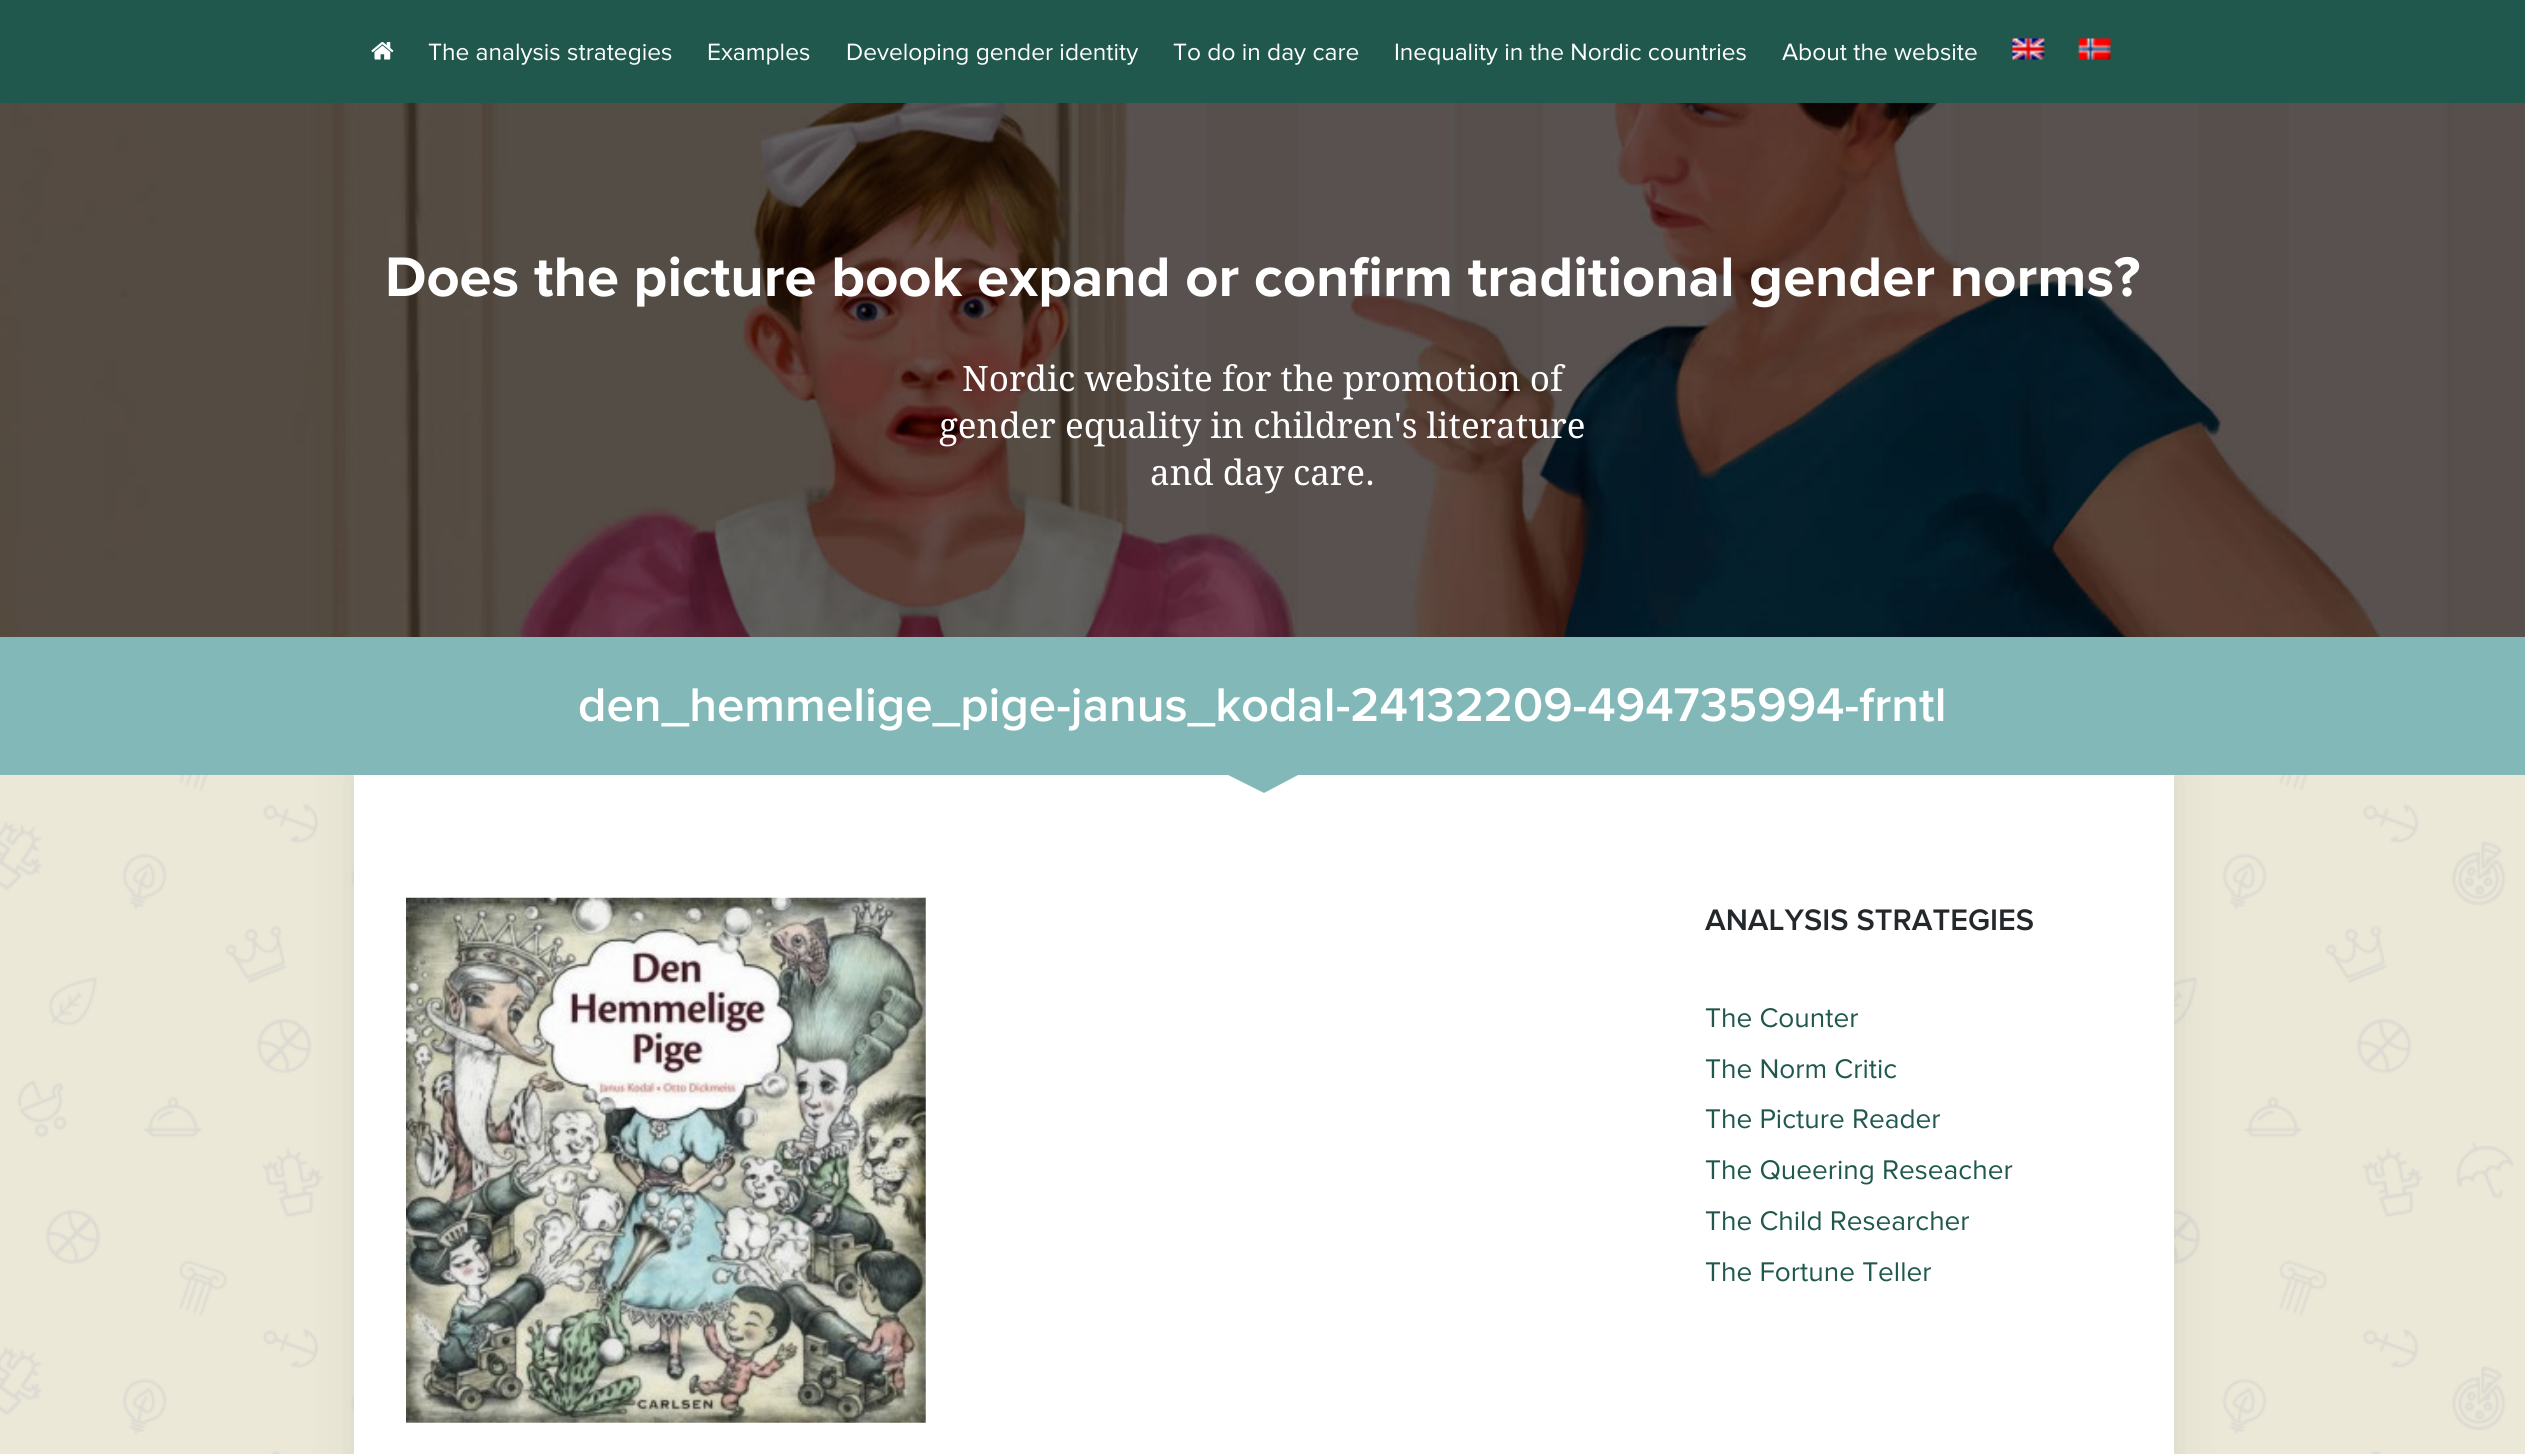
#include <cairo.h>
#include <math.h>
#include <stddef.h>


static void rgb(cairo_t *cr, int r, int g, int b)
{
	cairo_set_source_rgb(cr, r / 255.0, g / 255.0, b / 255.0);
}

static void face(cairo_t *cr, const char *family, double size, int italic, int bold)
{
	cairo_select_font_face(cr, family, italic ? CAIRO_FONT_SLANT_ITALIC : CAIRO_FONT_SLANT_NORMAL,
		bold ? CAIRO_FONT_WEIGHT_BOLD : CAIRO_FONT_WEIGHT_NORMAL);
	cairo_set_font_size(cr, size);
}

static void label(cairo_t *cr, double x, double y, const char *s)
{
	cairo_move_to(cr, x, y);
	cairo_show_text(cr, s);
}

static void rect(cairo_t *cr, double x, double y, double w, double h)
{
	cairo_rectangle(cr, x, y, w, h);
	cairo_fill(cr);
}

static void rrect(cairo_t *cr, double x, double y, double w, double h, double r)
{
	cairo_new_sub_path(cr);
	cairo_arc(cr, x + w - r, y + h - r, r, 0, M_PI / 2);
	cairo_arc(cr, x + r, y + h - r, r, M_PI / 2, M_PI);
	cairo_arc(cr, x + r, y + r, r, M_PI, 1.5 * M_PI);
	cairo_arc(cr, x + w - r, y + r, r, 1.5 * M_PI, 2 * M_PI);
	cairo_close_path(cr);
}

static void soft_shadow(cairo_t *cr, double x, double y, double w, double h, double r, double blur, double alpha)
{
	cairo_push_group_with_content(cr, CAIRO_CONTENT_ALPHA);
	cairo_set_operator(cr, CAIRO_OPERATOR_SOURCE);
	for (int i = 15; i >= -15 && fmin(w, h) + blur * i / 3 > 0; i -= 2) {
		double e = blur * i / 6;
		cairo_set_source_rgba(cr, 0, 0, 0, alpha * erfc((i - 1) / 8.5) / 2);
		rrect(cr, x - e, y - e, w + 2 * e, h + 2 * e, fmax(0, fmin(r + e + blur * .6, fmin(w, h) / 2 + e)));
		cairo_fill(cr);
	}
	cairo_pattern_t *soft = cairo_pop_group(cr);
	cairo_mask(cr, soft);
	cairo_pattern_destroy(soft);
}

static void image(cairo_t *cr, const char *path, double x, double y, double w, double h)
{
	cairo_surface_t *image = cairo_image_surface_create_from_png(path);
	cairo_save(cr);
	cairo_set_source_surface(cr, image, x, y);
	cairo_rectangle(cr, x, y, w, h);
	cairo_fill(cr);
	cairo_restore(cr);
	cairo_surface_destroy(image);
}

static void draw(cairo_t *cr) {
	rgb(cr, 255, 255, 255);
	cairo_paint(cr);
	image(cr, "image0.png", 0, 775, 2525, 679);
	rgb(cr, 32, 88, 78);
	rect(cr, 0, 0, 2525, 103);
	image(cr, "image1.png", 371, 42, 23, 18);
	face(cr, "Proxima Nova", 24.5, 0, 0);
	rgb(cr, 255, 255, 255);
	label(cr, 428, 60, "The analysis strategies");
	label(cr, 707, 60, "Examples");
	label(cr, 846, 60, "Developing gender identity");
	label(cr, 1173, 60, "To do in day care");
	label(cr, 1394, 60, "Inequality in the Nordic countries");
	label(cr, 1782, 60, "About the website");
	image(cr, "image2.png", 2012, 38, 33, 22);
	image(cr, "image3.png", 2078, 38, 33, 22);
	image(cr, "image4.png", 0, 103, 2525, 534);
	face(cr, "Proxima Nova", 57.75, 0, 1);
	label(cr, 385, 296, "Does the picture book expand or confirm traditional gender norms?");
	face(cr, "Droid Serif", 35, 0, 0);
	label(cr, 962, 391, "Nordic website for the promotion of");
	label(cr, 939, 438, "gender equality in children's literature");
	label(cr, 1150, 485, "and day care.");
	rgb(cr, 35, 40, 45);
	soft_shadow(cr, 354, 775, 1820, 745, 0, 22, 0.1);
	rgb(cr, 130, 185, 184);
	rect(cr, 0, 637, 2525, 138);
	face(cr, "Proxima Nova SemiBold", 49, 0, 0);
	rgb(cr, 255, 255, 255);
	label(cr, 578, 721, "den_hemmelige_pige-janus_kodal-24132209-494735994-frntl");
	rect(cr, 354, 775, 1820, 679);
	rgb(cr, 130, 185, 184);
	cairo_new_path(cr);
	cairo_move_to(cr, 1228, 775);
	cairo_line_to(cr, 1298, 775);
	cairo_line_to(cr, 1264, 793);
	cairo_close_path(cr);
	cairo_fill(cr);
	image(cr, "image5.png", 406, 897, 520, 526);
	face(cr, "Proxima Nova SemiBold", 30.75, 0, 0);
	rgb(cr, 35, 40, 45);
	label(cr, 1705, 930, "ANALYSIS STRATEGIES");
	face(cr, "Proxima Nova", 28, 0, 0);
	rgb(cr, 32, 88, 78);
	label(cr, 1705, 1027, "The Counter");
	label(cr, 1705, 1078, "The Norm Critic");
	label(cr, 1705, 1128, "The Picture Reader");
	label(cr, 1705, 1179, "The Queering Reseacher");
	label(cr, 1705, 1230, "The Child Researcher");
	label(cr, 1705, 1281, "The Fortune Teller");
}

int main(void) {
	cairo_surface_t *surface = cairo_image_surface_create(CAIRO_FORMAT_RGB24, 2525, 1454);
	cairo_t *cr = cairo_create(surface);
	cairo_font_options_t *options = cairo_font_options_create();
	cairo_font_options_set_hint_metrics(options, CAIRO_HINT_METRICS_OFF);
	cairo_font_options_set_hint_style(options, CAIRO_HINT_STYLE_NONE);
	cairo_set_font_options(cr, options);
	cairo_set_miter_limit(cr, 4);
	draw(cr);
	cairo_surface_write_to_png(surface, "render.png");
	cairo_font_options_destroy(options);
	cairo_destroy(cr);
	cairo_surface_destroy(surface);
	return 0;
}
